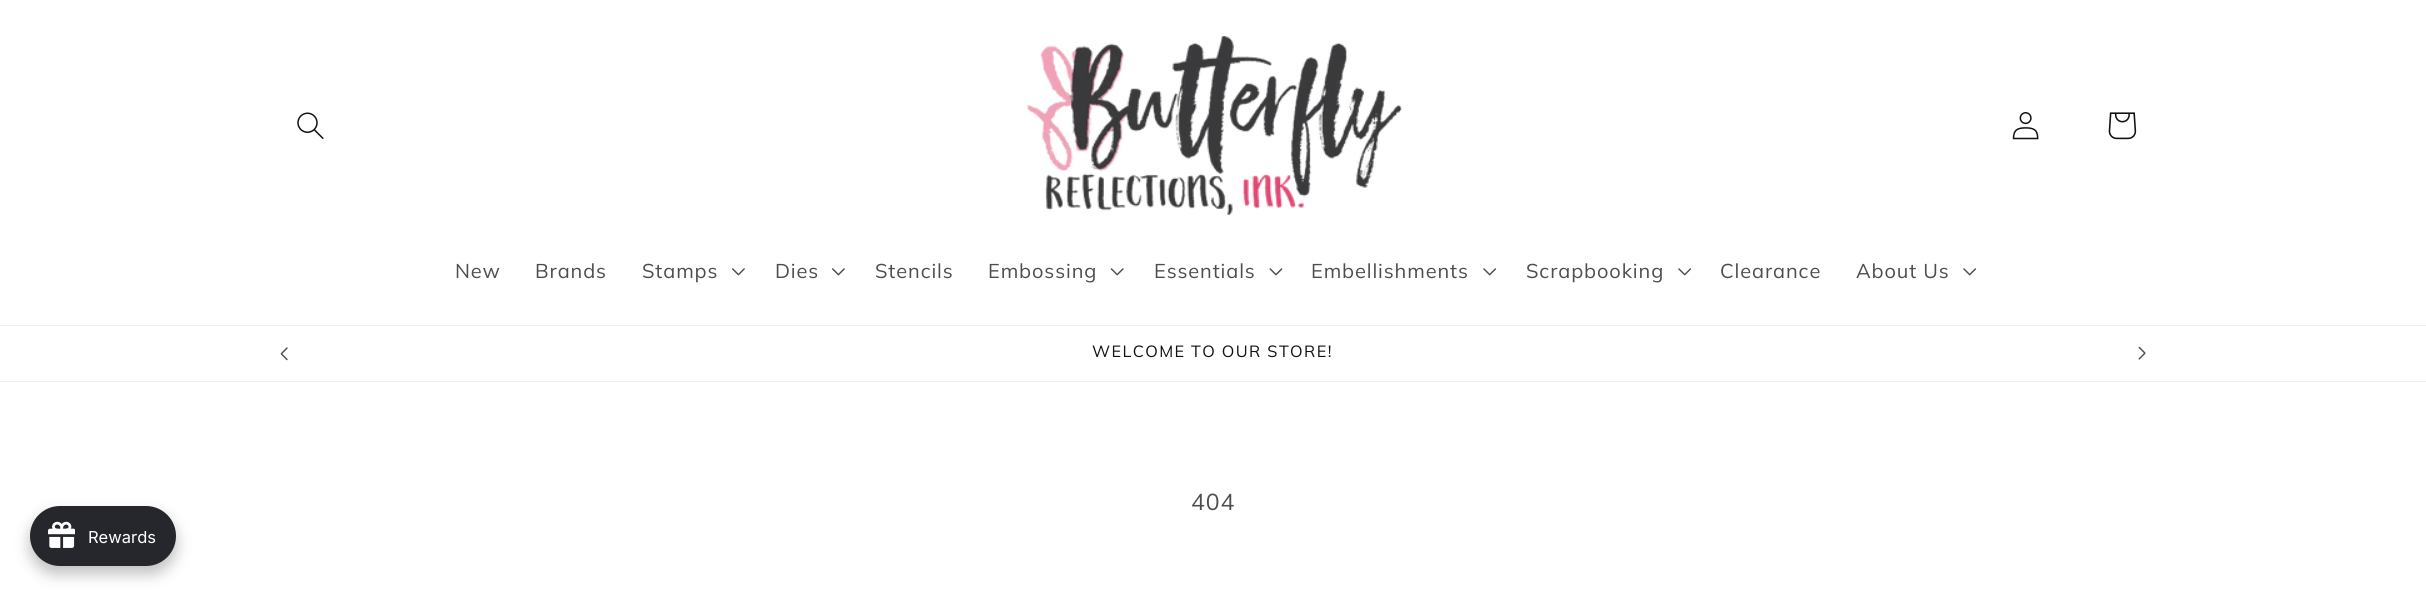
#include <cairo.h>
#include <math.h>
#include <stddef.h>


static void rgb(cairo_t *cr, int r, int g, int b)
{
	cairo_set_source_rgb(cr, r / 255.0, g / 255.0, b / 255.0);
}

static void face(cairo_t *cr, const char *family, double size, int italic, int bold)
{
	cairo_select_font_face(cr, family, italic ? CAIRO_FONT_SLANT_ITALIC : CAIRO_FONT_SLANT_NORMAL,
		bold ? CAIRO_FONT_WEIGHT_BOLD : CAIRO_FONT_WEIGHT_NORMAL);
	cairo_set_font_size(cr, size);
}

static void label(cairo_t *cr, double x, double y, const char *s)
{
	cairo_move_to(cr, x, y);
	cairo_show_text(cr, s);
}

static void tracked(cairo_t *cr, double x, double y, const char *s, double letter, double word)
{
	cairo_move_to(cr, x, y);
	while (*s) {
		char ch[5] = {0};
		int n = 0;
		do ch[n++] = *s++; while ((*s & 0xC0) == 0x80);
		cairo_show_text(cr, ch);
		cairo_rel_move_to(cr, letter + word * (*ch == ' '), 0);
	}
}

static void rect(cairo_t *cr, double x, double y, double w, double h)
{
	cairo_rectangle(cr, x, y, w, h);
	cairo_fill(cr);
}

static void rrect(cairo_t *cr, double x, double y, double w, double h, double r)
{
	cairo_new_sub_path(cr);
	cairo_arc(cr, x + w - r, y + h - r, r, 0, M_PI / 2);
	cairo_arc(cr, x + r, y + h - r, r, M_PI / 2, M_PI);
	cairo_arc(cr, x + r, y + r, r, M_PI, 1.5 * M_PI);
	cairo_arc(cr, x + w - r, y + r, r, 1.5 * M_PI, 2 * M_PI);
	cairo_close_path(cr);
}

static void soft_shadow(cairo_t *cr, double x, double y, double w, double h, double r, double blur, double alpha)
{
	cairo_push_group_with_content(cr, CAIRO_CONTENT_ALPHA);
	cairo_set_operator(cr, CAIRO_OPERATOR_SOURCE);
	for (int i = 15; i >= -15 && fmin(w, h) + blur * i / 3 > 0; i -= 2) {
		double e = blur * i / 6;
		cairo_set_source_rgba(cr, 0, 0, 0, alpha * erfc((i - 1) / 8.5) / 2);
		rrect(cr, x - e, y - e, w + 2 * e, h + 2 * e, fmax(0, fmin(r + e + blur * .6, fmin(w, h) / 2 + e)));
		cairo_fill(cr);
	}
	cairo_pattern_t *soft = cairo_pop_group(cr);
	cairo_mask(cr, soft);
	cairo_pattern_destroy(soft);
}

static void image(cairo_t *cr, const char *path, double x, double y, double w, double h)
{
	cairo_surface_t *image = cairo_image_surface_create_from_png(path);
	cairo_save(cr);
	cairo_set_source_surface(cr, image, x, y);
	cairo_rectangle(cr, x, y, w, h);
	cairo_fill(cr);
	cairo_restore(cr);
	cairo_surface_destroy(image);
}

static void draw(cairo_t *cr) {
	rgb(cr, 255, 255, 255);
	cairo_paint(cr);
	rgb(cr, 236, 236, 236);
	rect(cr, 0, 325, 2426, 1);
	image(cr, "image0.png", 297, 112, 27, 27);
	image(cr, "image1.png", 1027, 36, 375, 179);
	image(cr, "image2.png", 2012, 112, 27, 28);
	image(cr, "image3.png", 2108, 112, 29, 28);
	face(cr, "Muli", 20, 0, 0);
	rgb(cr, 77, 77, 77);
	tracked(cr, 455, 278, "New", 0.9, 0);
	tracked(cr, 535, 278, "Brands", 0.9, 0);
	tracked(cr, 642, 278, "Stamps", 0.9, 0);
	image(cr, "image4.png", 732, 268, 13, 8);
	tracked(cr, 775, 278, "Dies", 0.9, 0);
	image(cr, "image4.png", 832, 268, 13, 8);
	tracked(cr, 875, 278, "Stencils", 0.9, 0);
	tracked(cr, 988, 278, "Embossing", 0.9, 0);
	image(cr, "image5.png", 1110, 268, 14, 8);
	tracked(cr, 1154, 278, "Essentials", 0.9, 0);
	image(cr, "image6.png", 1269, 268, 14, 8);
	tracked(cr, 1311, 278, "Embellishments", 0.9, 0);
	image(cr, "image7.png", 1483, 268, 14, 8);
	tracked(cr, 1526, 278, "Scrapbooking", 0.9, 0);
	image(cr, "image8.png", 1678, 268, 13, 8);
	tracked(cr, 1720, 278, "Clearance", 0.9, 0);
	tracked(cr, 1856, 278, "About Us", 0.9, 0);
	image(cr, "image7.png", 1963, 268, 14, 8);
	rgb(cr, 236, 236, 236);
	rect(cr, 0, 381, 2426, 1);
	image(cr, "image9.png", 280, 347, 8, 14);
	face(cr, "Muli", 16.25, 0, 0);
	rgb(cr, 18, 18, 18);
	tracked(cr, 1092, 357, "WELCOME TO OUR STORE!", 1.4, 0);
	image(cr, "image10.png", 2138, 346, 8, 14);
	face(cr, "Muli", 23, 0, 0);
	rgb(cr, 77, 77, 77);
	tracked(cr, 1191, 510, "404", 0.9, 0);
	rgb(cr, 0, 0, 0);
	soft_shadow(cr, 30, 514, 146, 60, 30, 7.5, 0.25);
	rgb(cr, 37, 39, 44);
	rrect(cr, 30, 506, 146, 60, 30);
	cairo_fill(cr);
	image(cr, "image11.png", 48, 521, 27, 27);
	face(cr, "Inter", 16.5, 0, 0);
	rgb(cr, 255, 255, 255);
	label(cr, 88, 543, "Rewards");
}

int main(void) {
	cairo_surface_t *surface = cairo_image_surface_create(CAIRO_FORMAT_RGB24, 2426, 596);
	cairo_t *cr = cairo_create(surface);
	cairo_font_options_t *options = cairo_font_options_create();
	cairo_font_options_set_hint_metrics(options, CAIRO_HINT_METRICS_OFF);
	cairo_font_options_set_hint_style(options, CAIRO_HINT_STYLE_NONE);
	cairo_set_font_options(cr, options);
	cairo_set_miter_limit(cr, 4);
	draw(cr);
	cairo_surface_write_to_png(surface, "render.png");
	cairo_font_options_destroy(options);
	cairo_destroy(cr);
	cairo_surface_destroy(surface);
	return 0;
}
